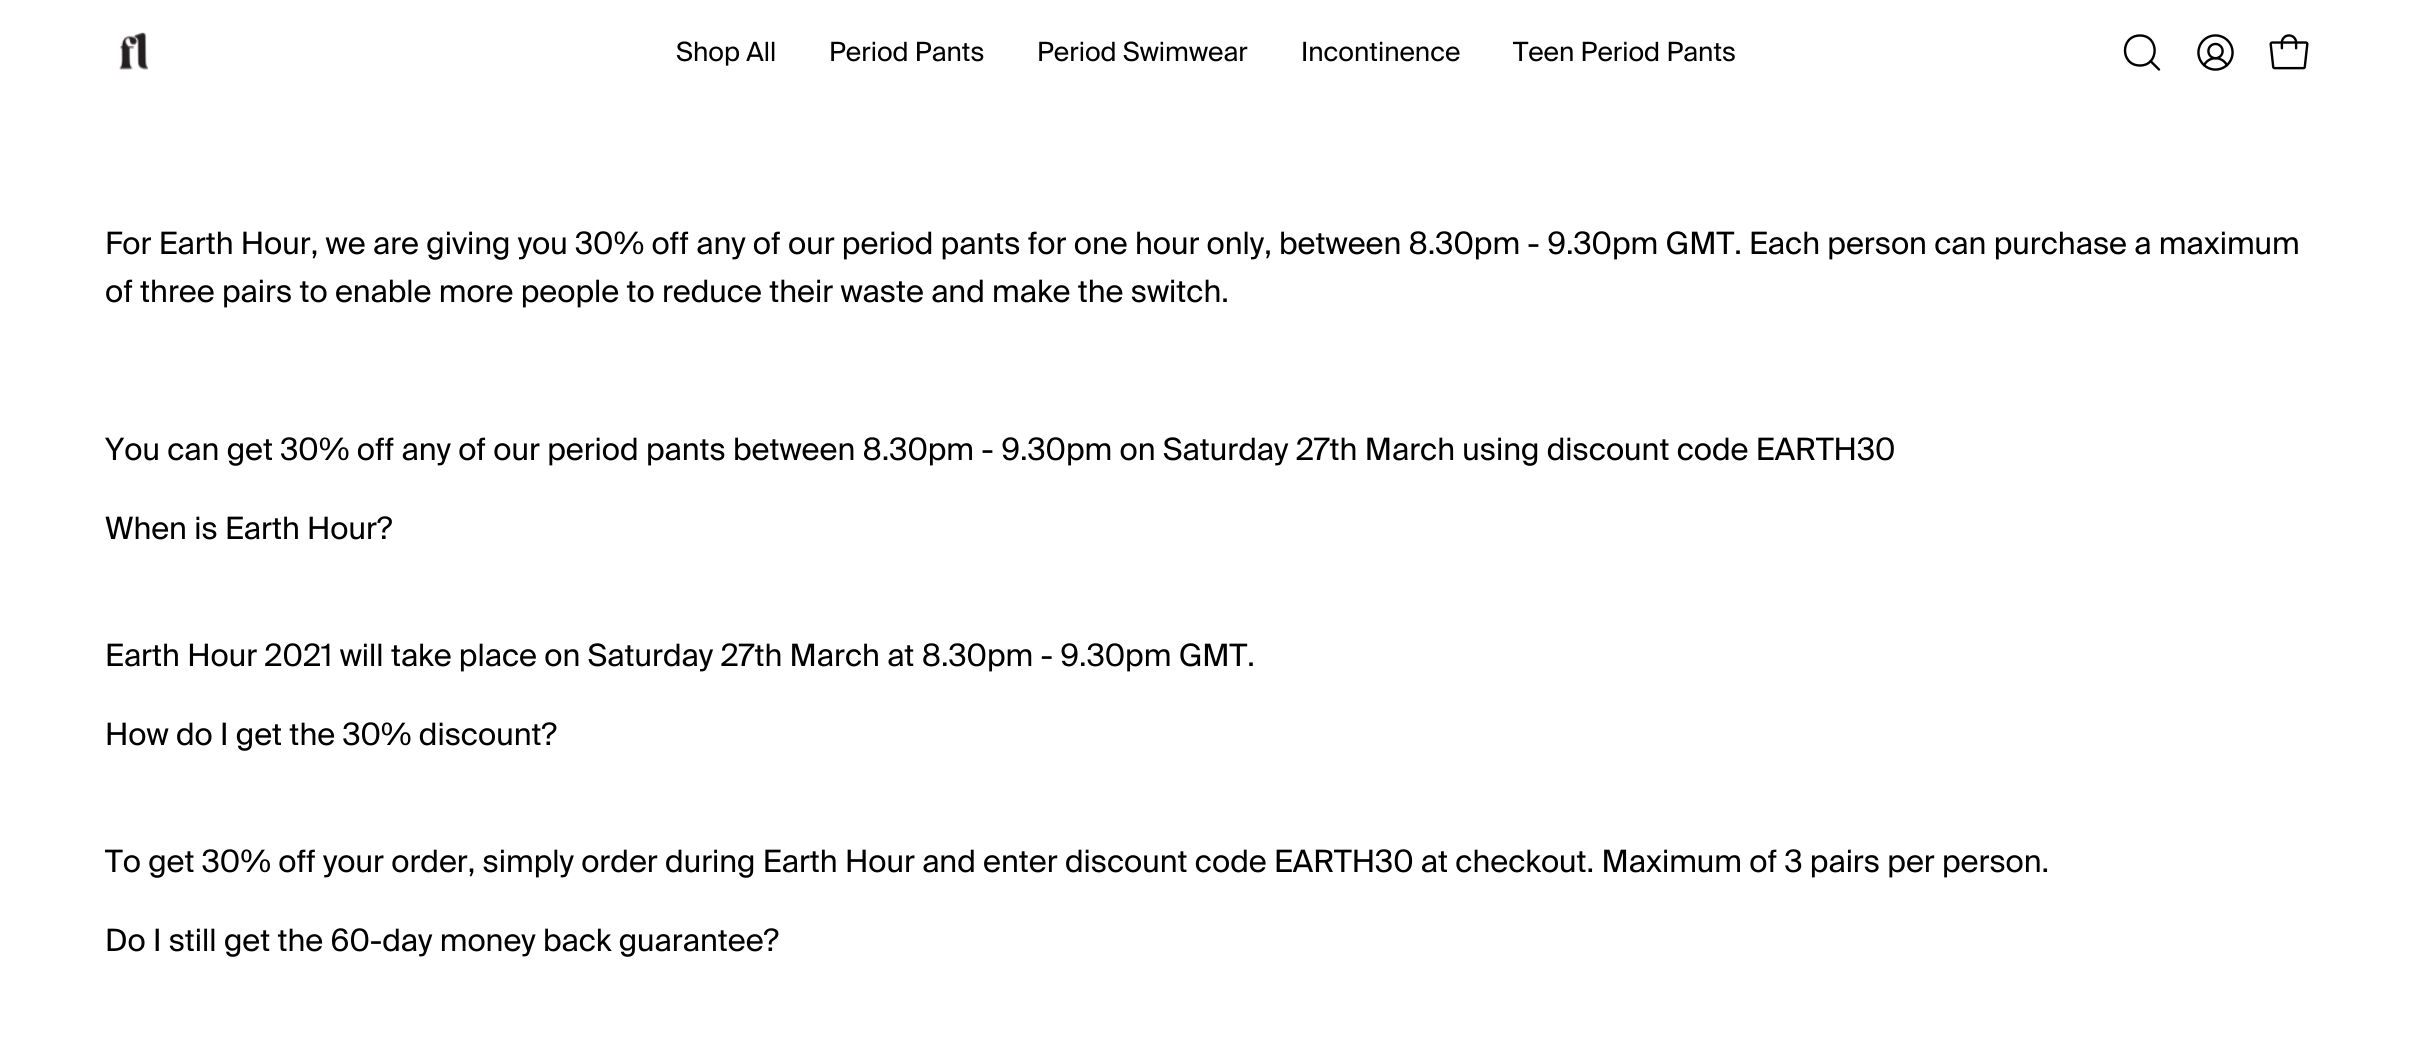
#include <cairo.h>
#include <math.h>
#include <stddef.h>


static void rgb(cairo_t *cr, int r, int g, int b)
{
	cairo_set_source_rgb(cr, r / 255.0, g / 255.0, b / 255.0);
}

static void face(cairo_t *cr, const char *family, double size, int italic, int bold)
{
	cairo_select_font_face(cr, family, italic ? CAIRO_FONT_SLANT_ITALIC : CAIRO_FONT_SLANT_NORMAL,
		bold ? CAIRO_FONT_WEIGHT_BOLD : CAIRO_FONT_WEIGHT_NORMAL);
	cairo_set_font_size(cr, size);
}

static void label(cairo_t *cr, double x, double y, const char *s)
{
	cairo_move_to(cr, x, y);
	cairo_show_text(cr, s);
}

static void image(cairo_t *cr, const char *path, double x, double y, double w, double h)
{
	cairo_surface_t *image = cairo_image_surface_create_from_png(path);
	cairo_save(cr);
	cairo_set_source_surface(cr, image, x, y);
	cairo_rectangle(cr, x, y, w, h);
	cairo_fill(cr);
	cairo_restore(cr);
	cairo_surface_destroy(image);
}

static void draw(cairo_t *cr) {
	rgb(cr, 255, 255, 255);
	cairo_paint(cr);
	image(cr, "image0.png", 119, 32, 30, 38);
	face(cr, "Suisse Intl", 26.5, 0, 0);
	rgb(cr, 0, 0, 0);
	label(cr, 676, 61, "Shop All");
	label(cr, 829, 61, "Period Pants");
	label(cr, 1037, 61, "Period Swimwear");
	label(cr, 1301, 61, "Incontinence");
	label(cr, 1513, 61, "Teen Period Pants");
	cairo_new_path(cr);
	cairo_move_to(cr, 2140, 65.5);
	cairo_curve_to(cr, 2159.5, 65.5, 2159.5, 35.5, 2140, 35.5);
	cairo_curve_to(cr, 2120, 35.5, 2120, 65.5, 2140, 65.5);
	cairo_close_path(cr);
	cairo_move_to(cr, 2150.5, 61);
	cairo_line_to(cr, 2159, 69.5);
	cairo_set_line_width(cr, 2.4);
	cairo_set_line_cap(cr, CAIRO_LINE_CAP_ROUND);
	cairo_set_line_join(cr, CAIRO_LINE_JOIN_ROUND);
	cairo_stroke(cr);
	image(cr, "image1.png", 2197, 34, 37, 37);
	image(cr, "image2.png", 2269, 34, 40, 36);
	face(cr, "Suisse Intl", 30.8, 0, 0);
	label(cr, 105, 254, "For Earth Hour, we are giving you 30% off any of our period pants for one hour only, between 8.30pm - 9.30pm GMT. Each person can purchase a maximum");
	label(cr, 105, 302, "of three pairs to enable more people to reduce their waste and make the switch.");
	label(cr, 105, 460, "You can get 30% off any of our period pants between 8.30pm - 9.30pm on Saturday 27th March using discount code EARTH30");
	label(cr, 105, 539, "When is Earth Hour?");
	label(cr, 105, 666, "Earth Hour 2021 will take place on Saturday 27th March at 8.30pm - 9.30pm GMT.");
	label(cr, 105, 745, "How do I get the 30% discount?");
	label(cr, 105, 872, "To get 30% off your order, simply order during Earth Hour and enter discount code EARTH30 at checkout. Maximum of 3 pairs per person.");
	label(cr, 105, 951, "Do I still get the 60-day money back guarantee?");
}

int main(void) {
	cairo_surface_t *surface = cairo_image_surface_create(CAIRO_FORMAT_RGB24, 2412, 1054);
	cairo_t *cr = cairo_create(surface);
	cairo_font_options_t *options = cairo_font_options_create();
	cairo_font_options_set_hint_metrics(options, CAIRO_HINT_METRICS_OFF);
	cairo_font_options_set_hint_style(options, CAIRO_HINT_STYLE_NONE);
	cairo_set_font_options(cr, options);
	cairo_set_miter_limit(cr, 4);
	draw(cr);
	cairo_surface_write_to_png(surface, "render.png");
	cairo_font_options_destroy(options);
	cairo_destroy(cr);
	cairo_surface_destroy(surface);
	return 0;
}
